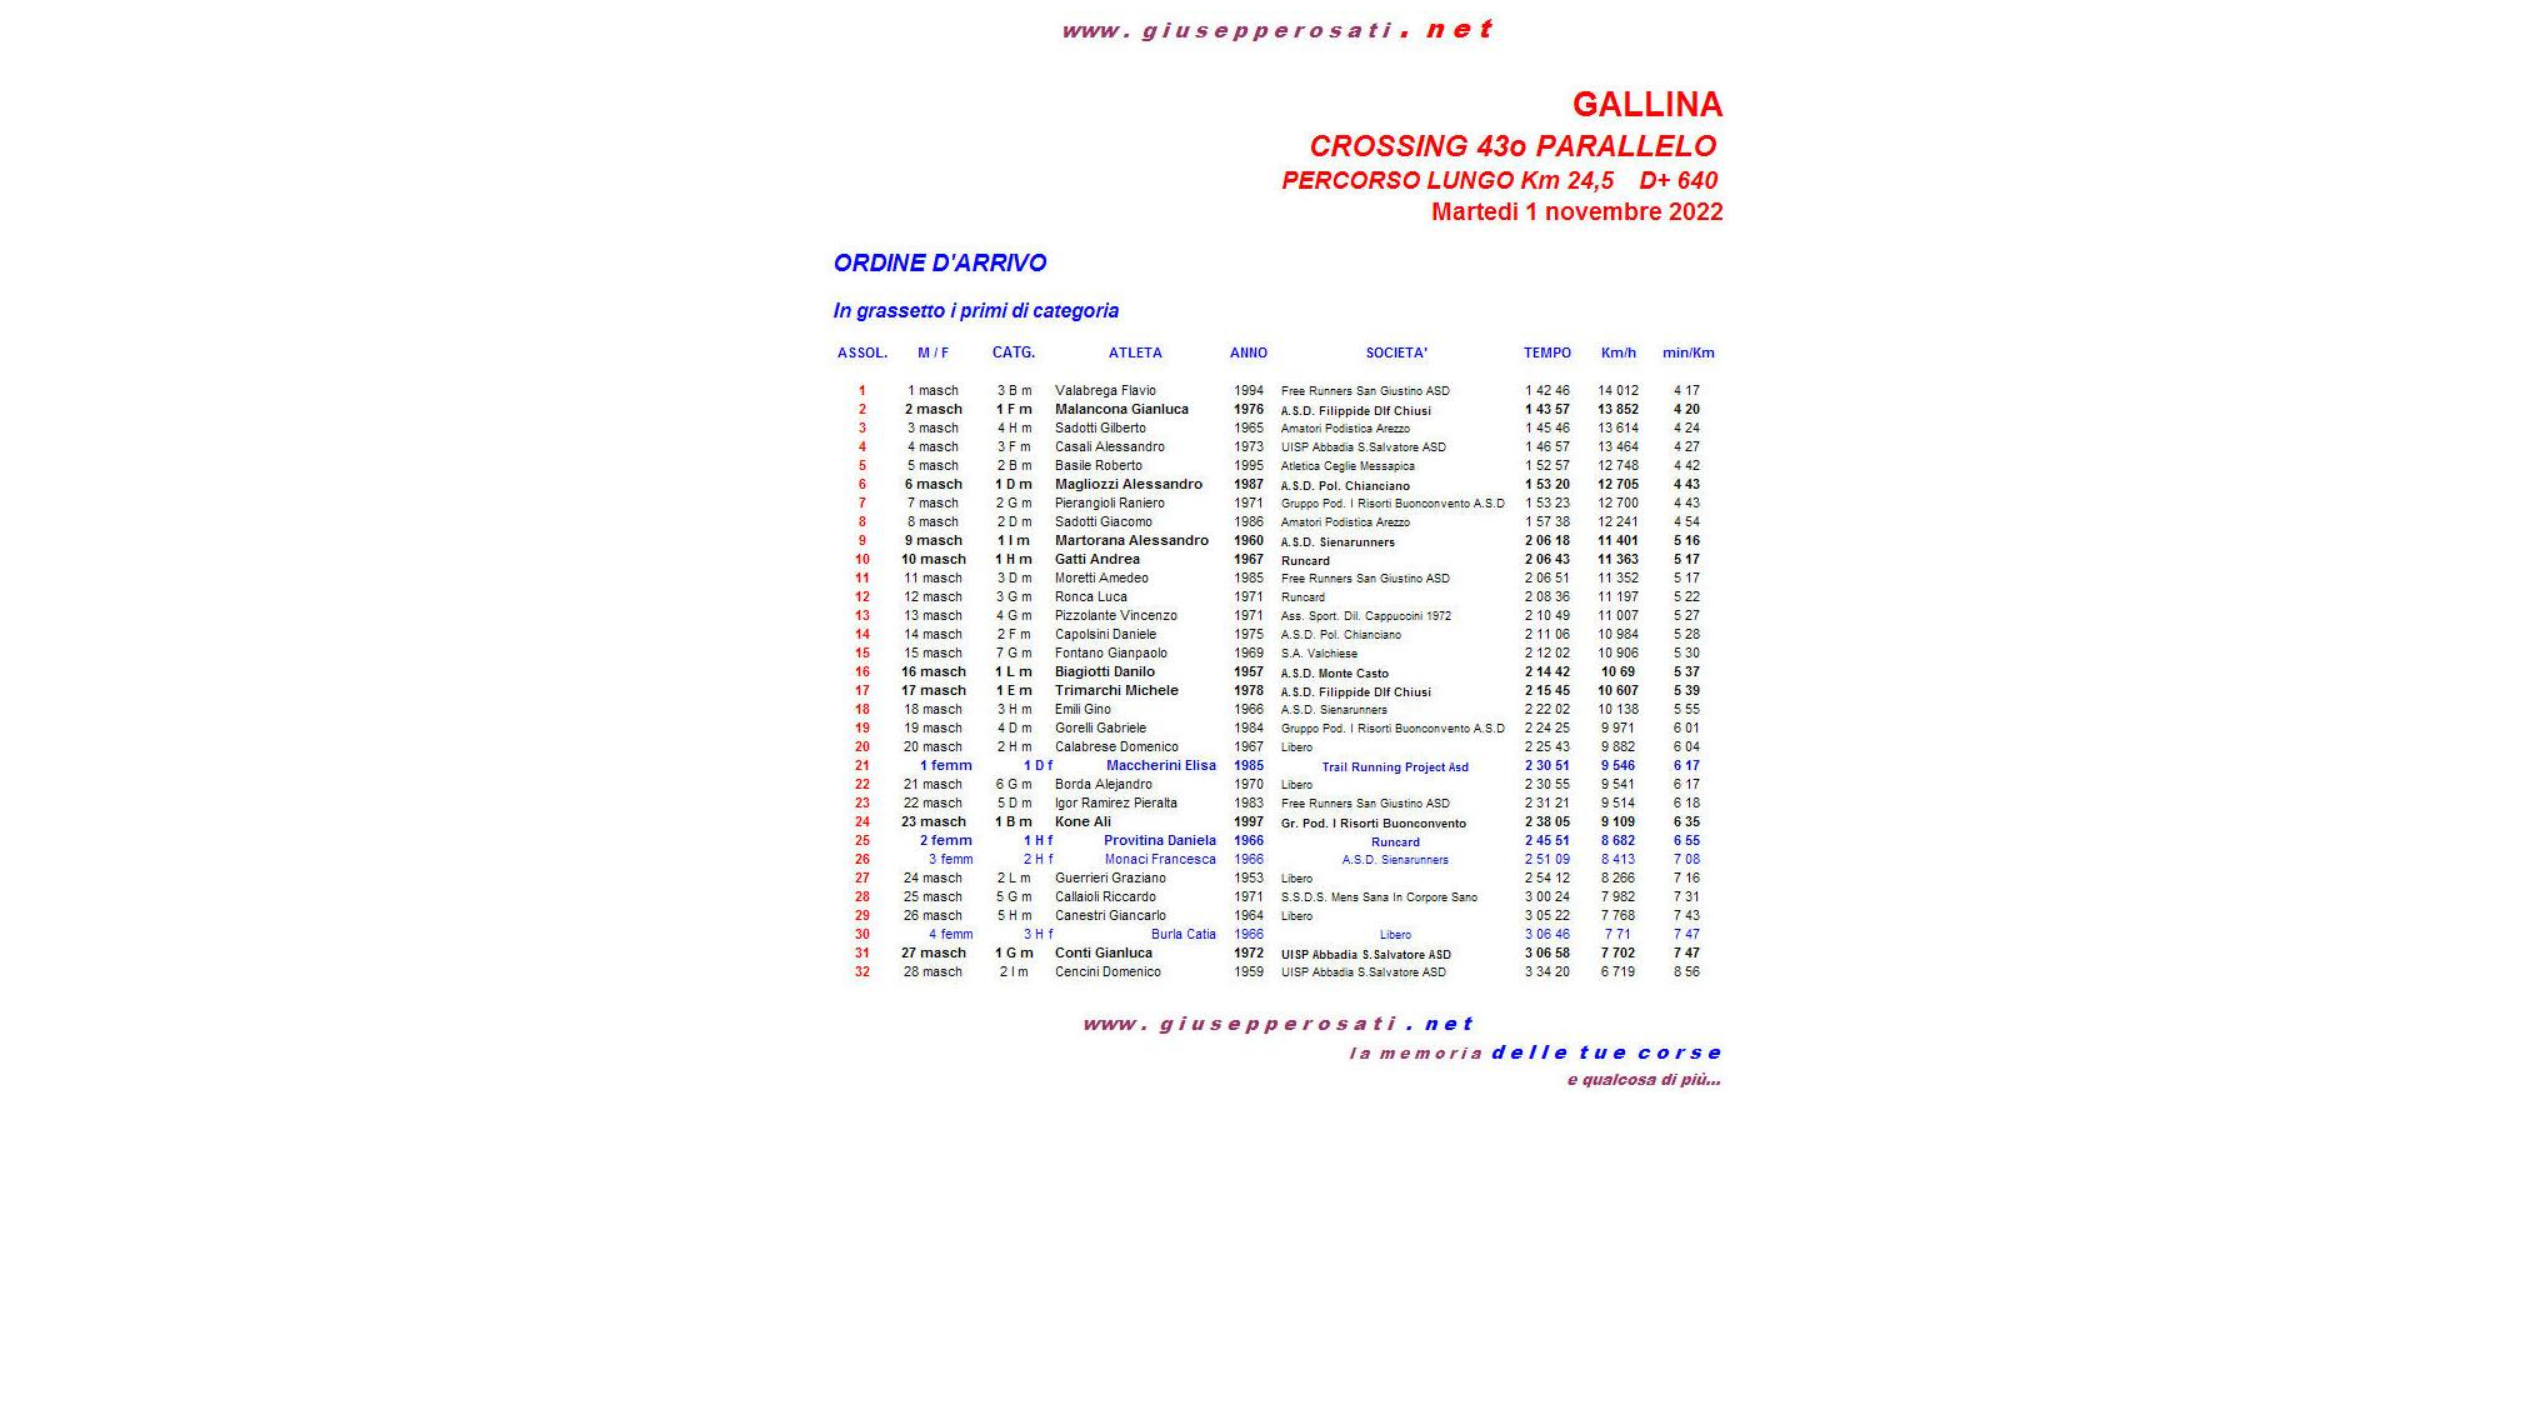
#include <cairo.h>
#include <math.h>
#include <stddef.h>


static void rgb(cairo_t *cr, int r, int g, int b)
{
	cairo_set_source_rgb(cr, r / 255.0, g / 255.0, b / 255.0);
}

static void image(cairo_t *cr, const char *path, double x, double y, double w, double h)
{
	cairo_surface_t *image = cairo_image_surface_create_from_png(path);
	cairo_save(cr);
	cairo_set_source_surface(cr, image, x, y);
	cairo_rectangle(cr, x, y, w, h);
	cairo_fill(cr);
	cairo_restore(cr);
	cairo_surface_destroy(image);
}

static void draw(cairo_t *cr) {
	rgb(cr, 255, 255, 255);
	cairo_paint(cr);
	image(cr, "image0.png", 823, 11, 906, 1083);
}

int main(void) {
	cairo_surface_t *surface = cairo_image_surface_create(CAIRO_FORMAT_RGB24, 2538, 1418);
	cairo_t *cr = cairo_create(surface);
	cairo_font_options_t *options = cairo_font_options_create();
	cairo_font_options_set_hint_metrics(options, CAIRO_HINT_METRICS_OFF);
	cairo_font_options_set_hint_style(options, CAIRO_HINT_STYLE_NONE);
	cairo_set_font_options(cr, options);
	cairo_set_miter_limit(cr, 4);
	draw(cr);
	cairo_surface_write_to_png(surface, "render.png");
	cairo_font_options_destroy(options);
	cairo_destroy(cr);
	cairo_surface_destroy(surface);
	return 0;
}
